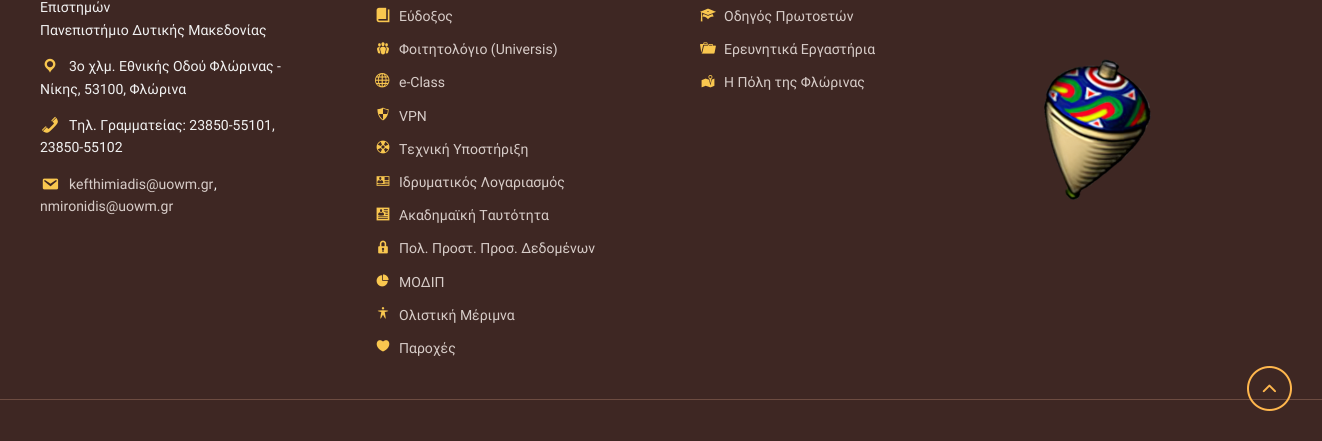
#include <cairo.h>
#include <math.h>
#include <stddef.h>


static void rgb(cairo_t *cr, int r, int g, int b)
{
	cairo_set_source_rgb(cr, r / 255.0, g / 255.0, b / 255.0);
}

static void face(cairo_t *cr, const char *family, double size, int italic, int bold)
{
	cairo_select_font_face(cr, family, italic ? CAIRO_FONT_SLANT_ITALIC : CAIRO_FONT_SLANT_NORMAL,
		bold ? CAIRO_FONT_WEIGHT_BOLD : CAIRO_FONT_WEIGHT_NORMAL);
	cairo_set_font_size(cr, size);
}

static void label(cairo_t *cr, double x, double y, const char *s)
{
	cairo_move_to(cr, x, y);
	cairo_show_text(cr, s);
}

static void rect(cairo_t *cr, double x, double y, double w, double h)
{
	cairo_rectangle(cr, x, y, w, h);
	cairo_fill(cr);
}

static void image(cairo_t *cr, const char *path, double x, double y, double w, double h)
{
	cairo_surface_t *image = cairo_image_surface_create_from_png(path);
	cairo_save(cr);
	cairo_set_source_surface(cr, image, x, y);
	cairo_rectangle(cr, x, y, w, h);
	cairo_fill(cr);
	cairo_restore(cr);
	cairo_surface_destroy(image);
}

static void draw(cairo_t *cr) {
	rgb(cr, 62, 39, 35);
	cairo_paint(cr);
	face(cr, "Roboto", 14, 0, 0);
	rgb(cr, 241, 241, 241);
	label(cr, 40, 12, "Επιστημών");
	label(cr, 40, 35, "Πανεπιστήμιο Δυτικής Μακεδονίας");
	image(cr, "image0.png", 44, 58, 12, 15);
	label(cr, 69, 71, "3ο χλμ. Εθνικής Οδού Φλώρινας -");
	label(cr, 40, 94, "Νίκης, 53100, Φλώρινα");
	image(cr, "image1.png", 42, 116, 16, 17);
	label(cr, 69, 130, "Τηλ. Γραμματείας: 23850-55101,");
	label(cr, 40, 152, "23850-55102");
	image(cr, "image2.png", 42, 178, 17, 12);
	rgb(cr, 215, 204, 200);
	label(cr, 69, 189, "kefthimiadis@uowm.gr");
	rgb(cr, 241, 241, 241);
	label(cr, 214, 189, ",");
	rgb(cr, 215, 204, 200);
	label(cr, 40, 211, "nmironidis@uowm.gr");
	image(cr, "image3.png", 376, 7, 14, 16);
	label(cr, 399, 21, "Εύδοξος");
	image(cr, "image4.png", 377, 42, 12, 13);
	label(cr, 399, 54, "Φοιτητολόγιο (Universis)");
	image(cr, "image5.png", 375, 73, 15, 15);
	label(cr, 399, 87, "e-Class");
	image(cr, "image6.png", 377, 107, 12, 14);
	label(cr, 399, 121, "VPN");
	image(cr, "image7.png", 376, 140, 14, 14);
	label(cr, 399, 154, "Τεχνική Υποστήριξη");
	image(cr, "image8.png", 376, 176, 14, 10);
	label(cr, 399, 187, "Ιδρυματικός Λογαριασμός");
	image(cr, "image9.png", 376, 207, 14, 14);
	label(cr, 399, 220, "Ακαδημαϊκή Ταυτότητα");
	image(cr, "image10.png", 378, 240, 10, 14);
	label(cr, 399, 253, "Πολ. Προστ. Προσ. Δεδομένων");
	image(cr, "image11.png", 376, 274, 13, 13);
	label(cr, 399, 287, "ΜΟΔΙΠ");
	image(cr, "image12.png", 377, 307, 12, 12);
	label(cr, 399, 320, "Ολιστική Μέριμνα");
	rgb(cr, 249, 199, 79);
	cairo_new_path(cr);
	cairo_move_to(cr, 383, 351.5);
	cairo_curve_to(cr, 393.5, 347, 389, 336.5, 383, 341.5);
	cairo_curve_to(cr, 377, 336.5, 372.5, 347, 383, 351.5);
	cairo_close_path(cr);
	cairo_fill(cr);
	rgb(cr, 215, 204, 200);
	label(cr, 399, 353, "Παροχές");
	image(cr, "image13.png", 700, 8, 16, 14);
	label(cr, 724, 21, "Οδηγός Πρωτοετών");
	image(cr, "image14.png", 700, 42, 16, 12);
	label(cr, 724, 54, "Ερευνητικά Εργαστήρια");
	image(cr, "image15.png", 701, 75, 14, 13);
	label(cr, 724, 87, "Η Πόλη της Φλώρινας");
	image(cr, "image16.png", 1044, 59, 107, 141);
	rgb(cr, 109, 76, 65);
	rect(cr, 0, 399, 1322, 1);
	cairo_arc(cr, 1269.5, 388.5, 21.5, 0, 2 * M_PI);
	rgb(cr, 255, 183, 77);
	cairo_stroke(cr);
	image(cr, "image17.png", 1262, 384, 14, 9);
}

int main(void) {
	cairo_surface_t *surface = cairo_image_surface_create(CAIRO_FORMAT_RGB24, 1322, 441);
	cairo_t *cr = cairo_create(surface);
	cairo_font_options_t *options = cairo_font_options_create();
	cairo_font_options_set_hint_metrics(options, CAIRO_HINT_METRICS_OFF);
	cairo_font_options_set_hint_style(options, CAIRO_HINT_STYLE_NONE);
	cairo_set_font_options(cr, options);
	cairo_set_miter_limit(cr, 4);
	draw(cr);
	cairo_surface_write_to_png(surface, "render.png");
	cairo_font_options_destroy(options);
	cairo_destroy(cr);
	cairo_surface_destroy(surface);
	return 0;
}
